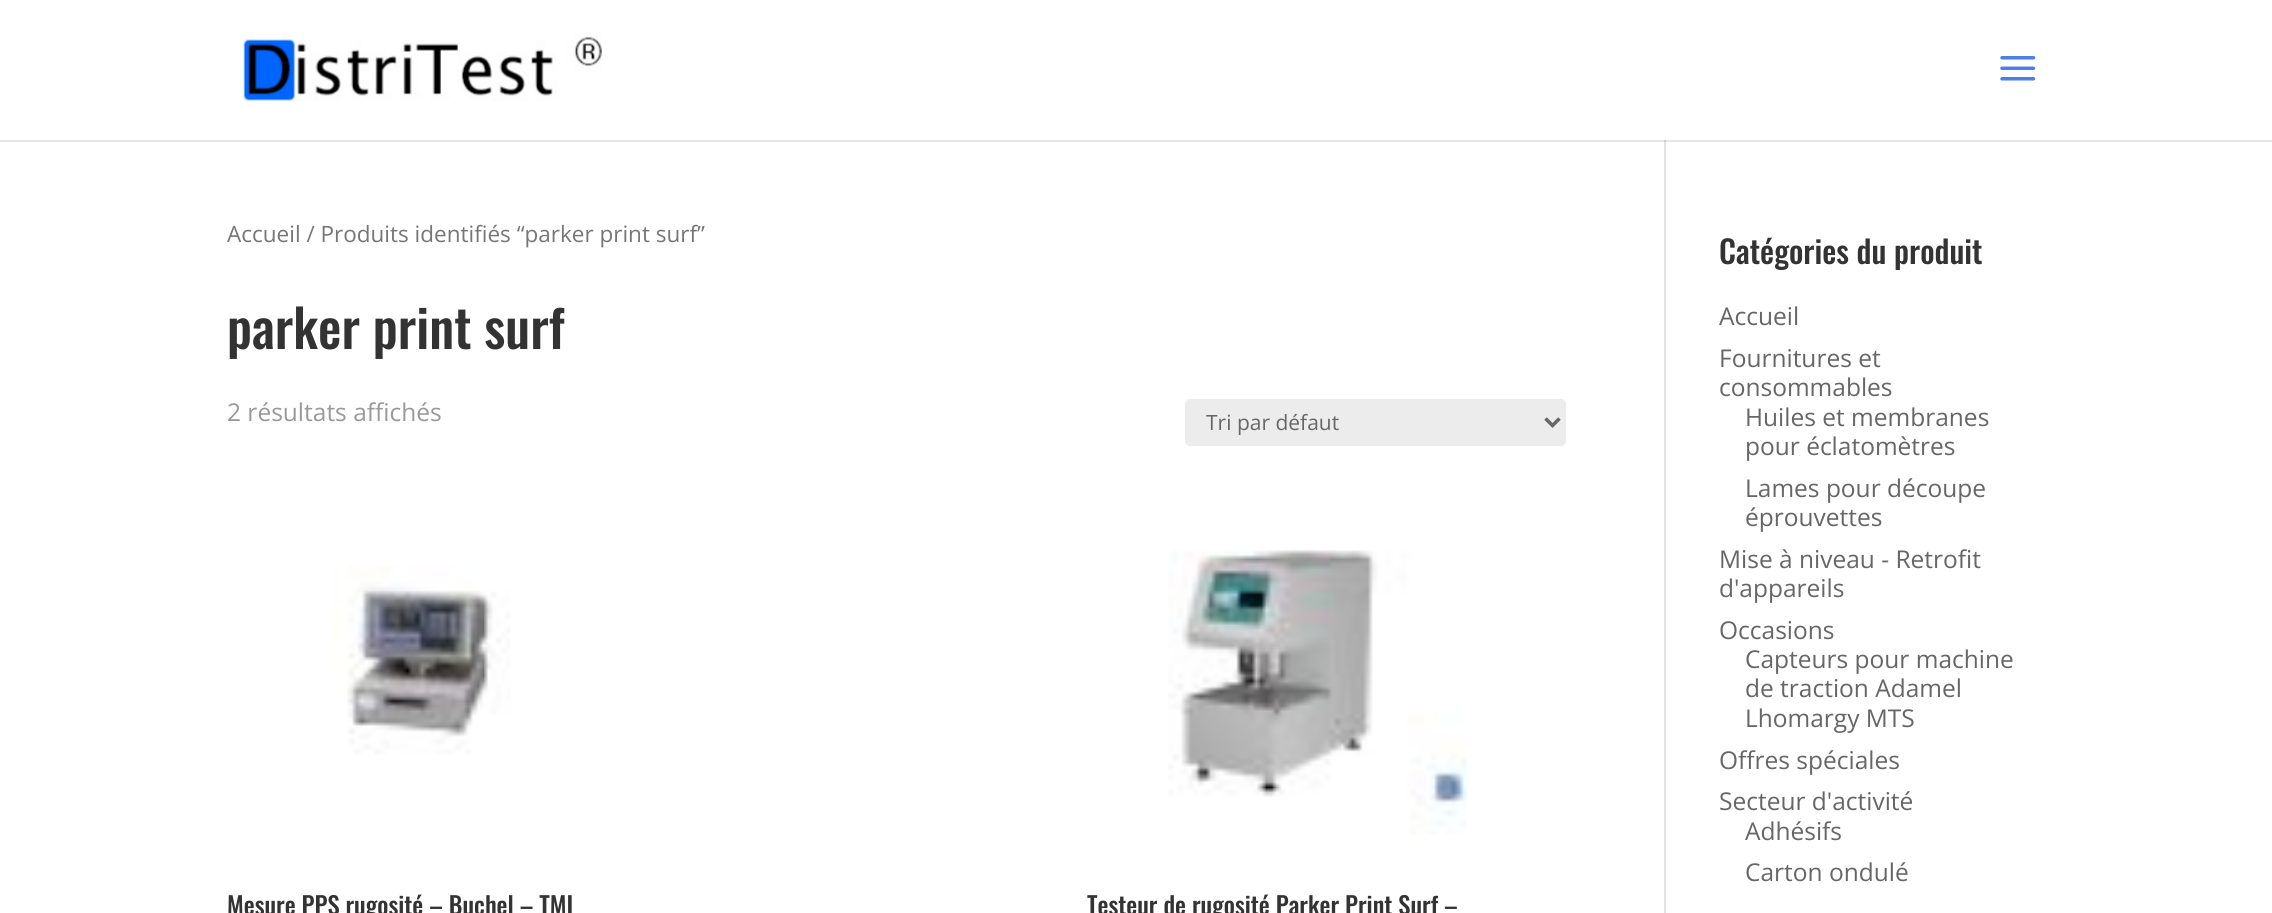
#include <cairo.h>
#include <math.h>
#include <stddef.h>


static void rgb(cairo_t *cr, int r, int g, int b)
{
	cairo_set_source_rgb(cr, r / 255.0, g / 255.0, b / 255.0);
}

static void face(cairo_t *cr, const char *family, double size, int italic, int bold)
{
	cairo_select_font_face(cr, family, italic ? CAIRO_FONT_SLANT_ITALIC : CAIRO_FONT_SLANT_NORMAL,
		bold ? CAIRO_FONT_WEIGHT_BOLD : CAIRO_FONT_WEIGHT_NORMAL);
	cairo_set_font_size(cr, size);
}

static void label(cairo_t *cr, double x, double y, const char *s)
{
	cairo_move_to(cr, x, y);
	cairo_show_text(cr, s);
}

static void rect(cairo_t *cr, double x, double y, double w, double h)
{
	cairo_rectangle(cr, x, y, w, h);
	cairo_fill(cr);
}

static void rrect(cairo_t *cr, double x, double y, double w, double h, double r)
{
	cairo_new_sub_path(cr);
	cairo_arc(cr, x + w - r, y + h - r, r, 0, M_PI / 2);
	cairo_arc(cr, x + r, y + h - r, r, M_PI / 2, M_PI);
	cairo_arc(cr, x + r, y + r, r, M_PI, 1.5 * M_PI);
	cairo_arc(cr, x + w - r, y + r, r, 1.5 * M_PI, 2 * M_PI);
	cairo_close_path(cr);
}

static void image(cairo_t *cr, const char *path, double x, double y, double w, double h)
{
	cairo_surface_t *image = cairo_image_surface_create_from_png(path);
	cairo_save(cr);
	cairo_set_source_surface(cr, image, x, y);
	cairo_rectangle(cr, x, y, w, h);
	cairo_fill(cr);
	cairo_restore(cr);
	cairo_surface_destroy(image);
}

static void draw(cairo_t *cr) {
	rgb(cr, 255, 255, 255);
	cairo_paint(cr);
	rgb(cr, 230, 230, 230);
	rect(cr, 0, 140, 2272, 2);
	image(cr, "image0.png", 243, 31, 359, 70);
	image(cr, "image1.png", 2000, 56, 36, 25);
	rgb(cr, 226, 226, 226);
	rect(cr, 1664, 142, 2, 771);
	rgb(cr, 203, 203, 203);
	rect(cr, 1664, 140, 2, 2);
	face(cr, "Open Sans", 22.5, 0, 0);
	rgb(cr, 118, 118, 118);
	label(cr, 227, 242, "Accueil / Produits identifiés “parker print surf”");
	face(cr, "Oswald Medium", 52.5, 0, 0);
	rgb(cr, 51, 51, 51);
	label(cr, 227, 349, "parker print surf");
	face(cr, "Open Sans", 24.5, 0, 0);
	rgb(cr, 153, 153, 153);
	label(cr, 227, 421, "2 résultats affichés");
	rgb(cr, 236, 236, 236);
	rrect(cr, 1185, 399, 381, 47, 5);
	cairo_fill(cr);
	cairo_new_path(cr);
	cairo_move_to(cr, 1545.5, 418.5);
	cairo_line_to(cr, 1552.5, 425.5);
	cairo_line_to(cr, 1559.5, 418.5);
	rgb(cr, 102, 102, 102);
	cairo_set_line_width(cr, 3.5);
	cairo_stroke(cr);
	face(cr, "Open Sans", 21, 0, 0);
	label(cr, 1206, 430, "Tri par défaut");
	image(cr, "image2.png", 332, 565, 179, 190);
	face(cr, "Oswald Medium", 24.5, 0, 0);
	rgb(cr, 51, 51, 51);
	label(cr, 227, 915, "Mesure PPS rugosité – Buchel – TMI");
	image(cr, "image3.png", 1168, 550, 299, 285);
	label(cr, 1087, 915, "Testeur de rugosité Parker Print Surf –");
	face(cr, "Oswald Medium", 31.5, 0, 0);
	label(cr, 1719, 264, "Catégories du produit");
	face(cr, "Open Sans", 24.5, 0, 0);
	rgb(cr, 102, 102, 102);
	label(cr, 1719, 325, "Accueil");
	label(cr, 1719, 367, "Fournitures et");
	label(cr, 1719, 396, "consommables");
	label(cr, 1745, 426, "Huiles et membranes");
	label(cr, 1745, 455, "pour éclatomètres");
	label(cr, 1745, 497, "Lames pour découpe");
	label(cr, 1745, 526, "éprouvettes");
	label(cr, 1719, 568, "Mise à niveau - Retrofit");
	label(cr, 1719, 597, "d'appareils");
	label(cr, 1719, 639, "Occasions");
	label(cr, 1745, 668, "Capteurs pour machine");
	label(cr, 1745, 697, "de traction Adamel");
	label(cr, 1745, 727, "Lhomargy MTS");
	label(cr, 1719, 769, "Offres spéciales");
	label(cr, 1719, 810, "Secteur d'activité");
	label(cr, 1745, 840, "Adhésifs");
	label(cr, 1745, 881, "Carton ondulé");
}

int main(void) {
	cairo_surface_t *surface = cairo_image_surface_create(CAIRO_FORMAT_RGB24, 2272, 913);
	cairo_t *cr = cairo_create(surface);
	cairo_font_options_t *options = cairo_font_options_create();
	cairo_font_options_set_hint_metrics(options, CAIRO_HINT_METRICS_OFF);
	cairo_font_options_set_hint_style(options, CAIRO_HINT_STYLE_NONE);
	cairo_set_font_options(cr, options);
	cairo_set_miter_limit(cr, 4);
	draw(cr);
	cairo_surface_write_to_png(surface, "render.png");
	cairo_font_options_destroy(options);
	cairo_destroy(cr);
	cairo_surface_destroy(surface);
	return 0;
}
